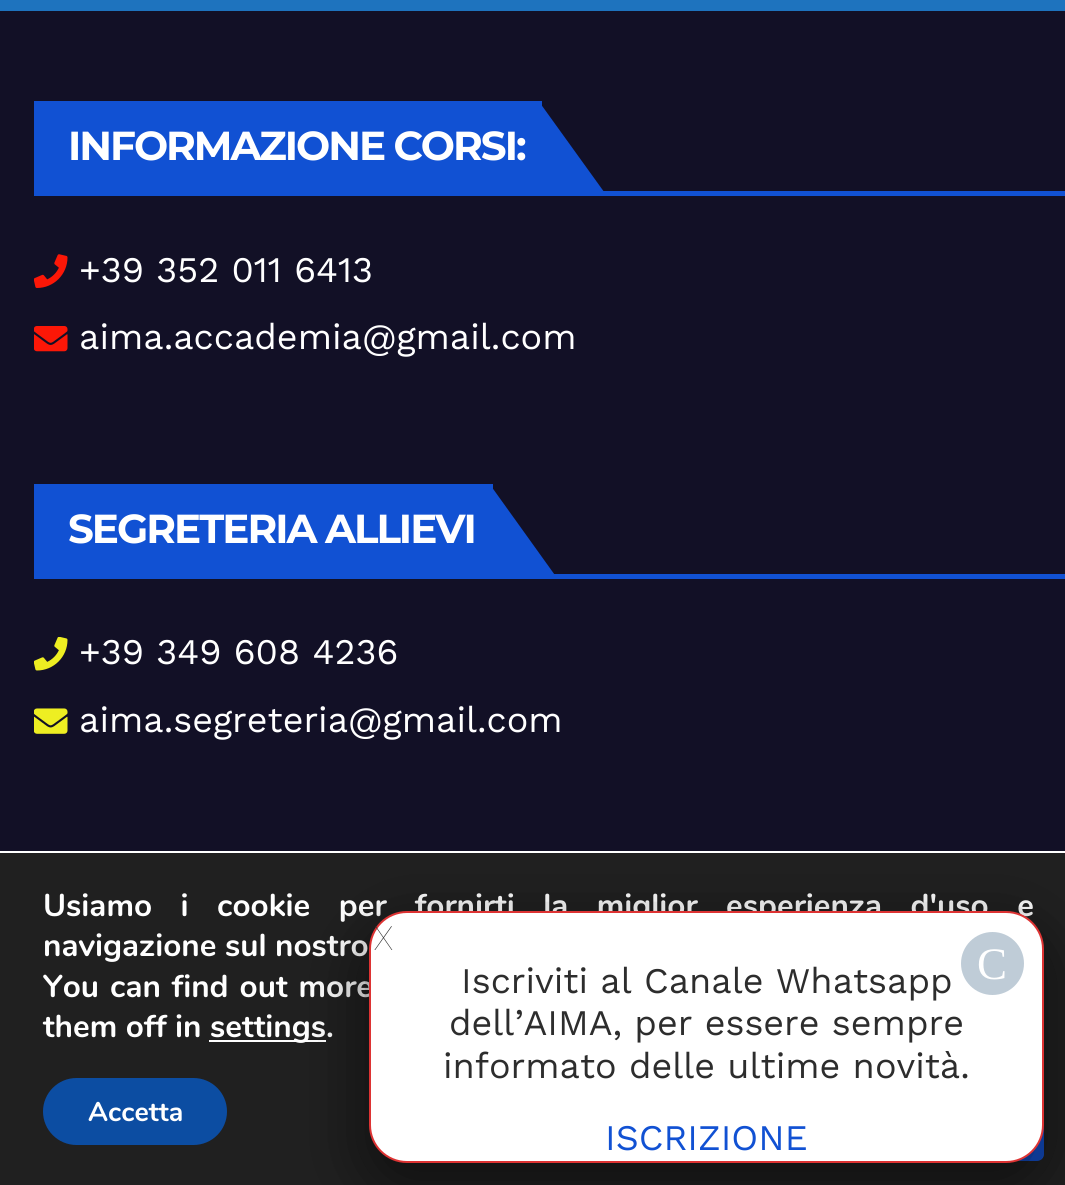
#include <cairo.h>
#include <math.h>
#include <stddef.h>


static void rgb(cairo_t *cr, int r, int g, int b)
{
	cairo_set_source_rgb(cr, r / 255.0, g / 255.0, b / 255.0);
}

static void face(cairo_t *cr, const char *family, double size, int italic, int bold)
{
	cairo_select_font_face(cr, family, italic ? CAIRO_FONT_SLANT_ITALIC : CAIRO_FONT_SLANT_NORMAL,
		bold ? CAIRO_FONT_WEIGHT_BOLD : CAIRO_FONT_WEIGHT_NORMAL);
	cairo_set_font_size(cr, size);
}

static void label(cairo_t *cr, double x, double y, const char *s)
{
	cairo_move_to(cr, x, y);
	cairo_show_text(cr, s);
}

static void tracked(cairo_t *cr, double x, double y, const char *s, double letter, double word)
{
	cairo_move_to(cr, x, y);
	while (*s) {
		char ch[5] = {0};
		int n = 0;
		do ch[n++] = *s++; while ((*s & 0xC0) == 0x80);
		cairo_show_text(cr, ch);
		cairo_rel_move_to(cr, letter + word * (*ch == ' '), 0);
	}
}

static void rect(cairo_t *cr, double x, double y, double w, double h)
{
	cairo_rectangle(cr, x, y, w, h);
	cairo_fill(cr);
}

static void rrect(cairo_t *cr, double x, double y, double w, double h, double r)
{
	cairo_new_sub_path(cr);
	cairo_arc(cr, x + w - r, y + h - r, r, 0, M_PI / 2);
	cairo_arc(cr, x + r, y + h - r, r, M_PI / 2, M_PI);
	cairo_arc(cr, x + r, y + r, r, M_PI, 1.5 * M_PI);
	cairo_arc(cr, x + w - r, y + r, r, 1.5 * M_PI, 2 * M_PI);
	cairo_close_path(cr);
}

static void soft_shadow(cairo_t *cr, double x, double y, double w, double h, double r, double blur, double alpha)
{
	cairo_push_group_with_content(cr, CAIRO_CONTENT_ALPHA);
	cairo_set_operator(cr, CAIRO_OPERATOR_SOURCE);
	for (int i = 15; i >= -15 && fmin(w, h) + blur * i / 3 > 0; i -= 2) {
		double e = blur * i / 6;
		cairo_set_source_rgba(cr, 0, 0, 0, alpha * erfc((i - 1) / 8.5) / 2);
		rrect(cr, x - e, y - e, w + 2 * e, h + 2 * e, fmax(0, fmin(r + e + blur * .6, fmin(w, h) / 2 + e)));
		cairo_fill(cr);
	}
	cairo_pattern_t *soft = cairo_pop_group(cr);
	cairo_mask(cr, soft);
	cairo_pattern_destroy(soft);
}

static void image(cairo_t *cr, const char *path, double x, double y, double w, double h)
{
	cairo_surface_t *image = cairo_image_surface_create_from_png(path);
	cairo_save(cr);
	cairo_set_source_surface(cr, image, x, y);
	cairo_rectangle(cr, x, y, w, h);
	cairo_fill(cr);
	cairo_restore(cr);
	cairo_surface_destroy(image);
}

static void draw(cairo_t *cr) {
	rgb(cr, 30, 115, 190);
	cairo_paint(cr);
	rgb(cr, 18, 16, 38);
	rect(cr, 0, 11, 1065, 840);
	rgb(cr, 17, 81, 211);
	rect(cr, 34, 101, 508, 90);
	face(cr, "Montserrat", 40.5, 0, 1);
	rgb(cr, 255, 255, 255);
	tracked(cr, 68, 160, "INFORMAZIONE CORSI:", -2, 0);
	rgb(cr, 17, 81, 211);
	cairo_new_path(cr);
	cairo_move_to(cr, 607, 196);
	cairo_line_to(cr, 540, 196);
	cairo_line_to(cr, 540, 103);
	cairo_close_path(cr);
	cairo_fill(cr);
	rect(cr, 34, 191, 1031, 5);
	image(cr, "image0.png", 34, 254, 34, 34);
	face(cr, "Work Sans", 36, 0, 0);
	rgb(cr, 255, 255, 255);
	label(cr, 79, 282, "+39 352 011 6413");
	image(cr, "image1.png", 34, 326, 34, 26);
	label(cr, 79, 349, "aima.accademia@gmail.com");
	rgb(cr, 17, 81, 211);
	rect(cr, 34, 484, 459, 90);
	face(cr, "Montserrat", 40.5, 0, 1);
	rgb(cr, 255, 255, 255);
	tracked(cr, 68, 543, "SEGRETERIA ALLIEVI", -2, 0);
	rgb(cr, 17, 81, 211);
	cairo_new_path(cr);
	cairo_move_to(cr, 557, 578);
	cairo_line_to(cr, 491, 578);
	cairo_line_to(cr, 491, 486);
	cairo_close_path(cr);
	cairo_fill(cr);
	rect(cr, 34, 574, 1031, 5);
	image(cr, "image2.png", 34, 637, 34, 34);
	face(cr, "Work Sans", 36, 0, 0);
	rgb(cr, 255, 255, 255);
	label(cr, 79, 664, "+39 349 608 4236");
	image(cr, "image3.png", 34, 708, 34, 26);
	label(cr, 79, 732, "aima.segreteria@gmail.com");
	rgb(cr, 32, 32, 32);
	rect(cr, 0, 853, 1065, 332);
	rgb(cr, 255, 255, 255);
	rect(cr, 0, 851, 1065, 2);
	face(cr, "Nunito", 31.5, 0, 1);
	tracked(cr, 43, 916, "Usiamo i cookie per fornirti la miglior esperienza d'uso e", 0, 20);
	label(cr, 43, 956, "navigazione sul nostro");
	tracked(cr, 43, 997, "You can find out more", 0, 2.5);
	label(cr, 43, 1037, "them off in");
	rect(cr, 209, 1040, 117, 2);
	label(cr, 210, 1037, "settings.");
	rgb(cr, 12, 77, 162);
	rrect(cr, 43, 1078, 184, 67, 33.5);
	cairo_fill(cr);
	face(cr, "Nunito", 27, 0, 1);
	rgb(cr, 255, 255, 255);
	label(cr, 88, 1121, "Accetta");
	rgb(cr, 17, 81, 211);
	rrect(cr, 956.5, 1073.5, 85, 85, 4.5);
	cairo_fill_preserve(cr);
	cairo_set_line_width(cr, 5);
	cairo_stroke(cr);
	rgb(cr, 2, 2, 2);
	soft_shadow(cr, 360, 925, 693, 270, 47, 28, 0.5);
	rgb(cr, 255, 255, 255);
	rrect(cr, 370, 912, 673, 250, 37);
	cairo_fill_preserve(cr);
	rgb(cr, 221, 51, 51);
	cairo_set_line_width(cr, 2);
	cairo_stroke(cr);
	face(cr, "Work Sans Thin", 36, 0, 0);
	rgb(cr, 45, 45, 45);
	label(cr, 374, 950, "X");
	face(cr, "Work Sans", 36, 0, 0);
	label(cr, 461, 993, "Iscriviti al Canale Whatsapp");
	label(cr, 449, 1035, "dell’AIMA, per essere sempre");
	label(cr, 443, 1078, "informato delle ultime novità.");
	rgb(cr, 17, 81, 211);
	label(cr, 605, 1150, "ISCRIZIONE");
	rgb(cr, 191, 204, 215);
	cairo_new_path(cr);
	cairo_arc(cr, 992.5, 963.5, 31.5, 0, 2 * M_PI);
	cairo_fill(cr);
	face(cr, "Liberation Serif", 45, 0, 0);
	rgb(cr, 255, 255, 255);
	label(cr, 977, 979, "C");
}

int main(void) {
	cairo_surface_t *surface = cairo_image_surface_create(CAIRO_FORMAT_RGB24, 1065, 1185);
	cairo_t *cr = cairo_create(surface);
	cairo_font_options_t *options = cairo_font_options_create();
	cairo_font_options_set_hint_metrics(options, CAIRO_HINT_METRICS_OFF);
	cairo_font_options_set_hint_style(options, CAIRO_HINT_STYLE_NONE);
	cairo_set_font_options(cr, options);
	cairo_set_miter_limit(cr, 4);
	draw(cr);
	cairo_surface_write_to_png(surface, "render.png");
	cairo_font_options_destroy(options);
	cairo_destroy(cr);
	cairo_surface_destroy(surface);
	return 0;
}
